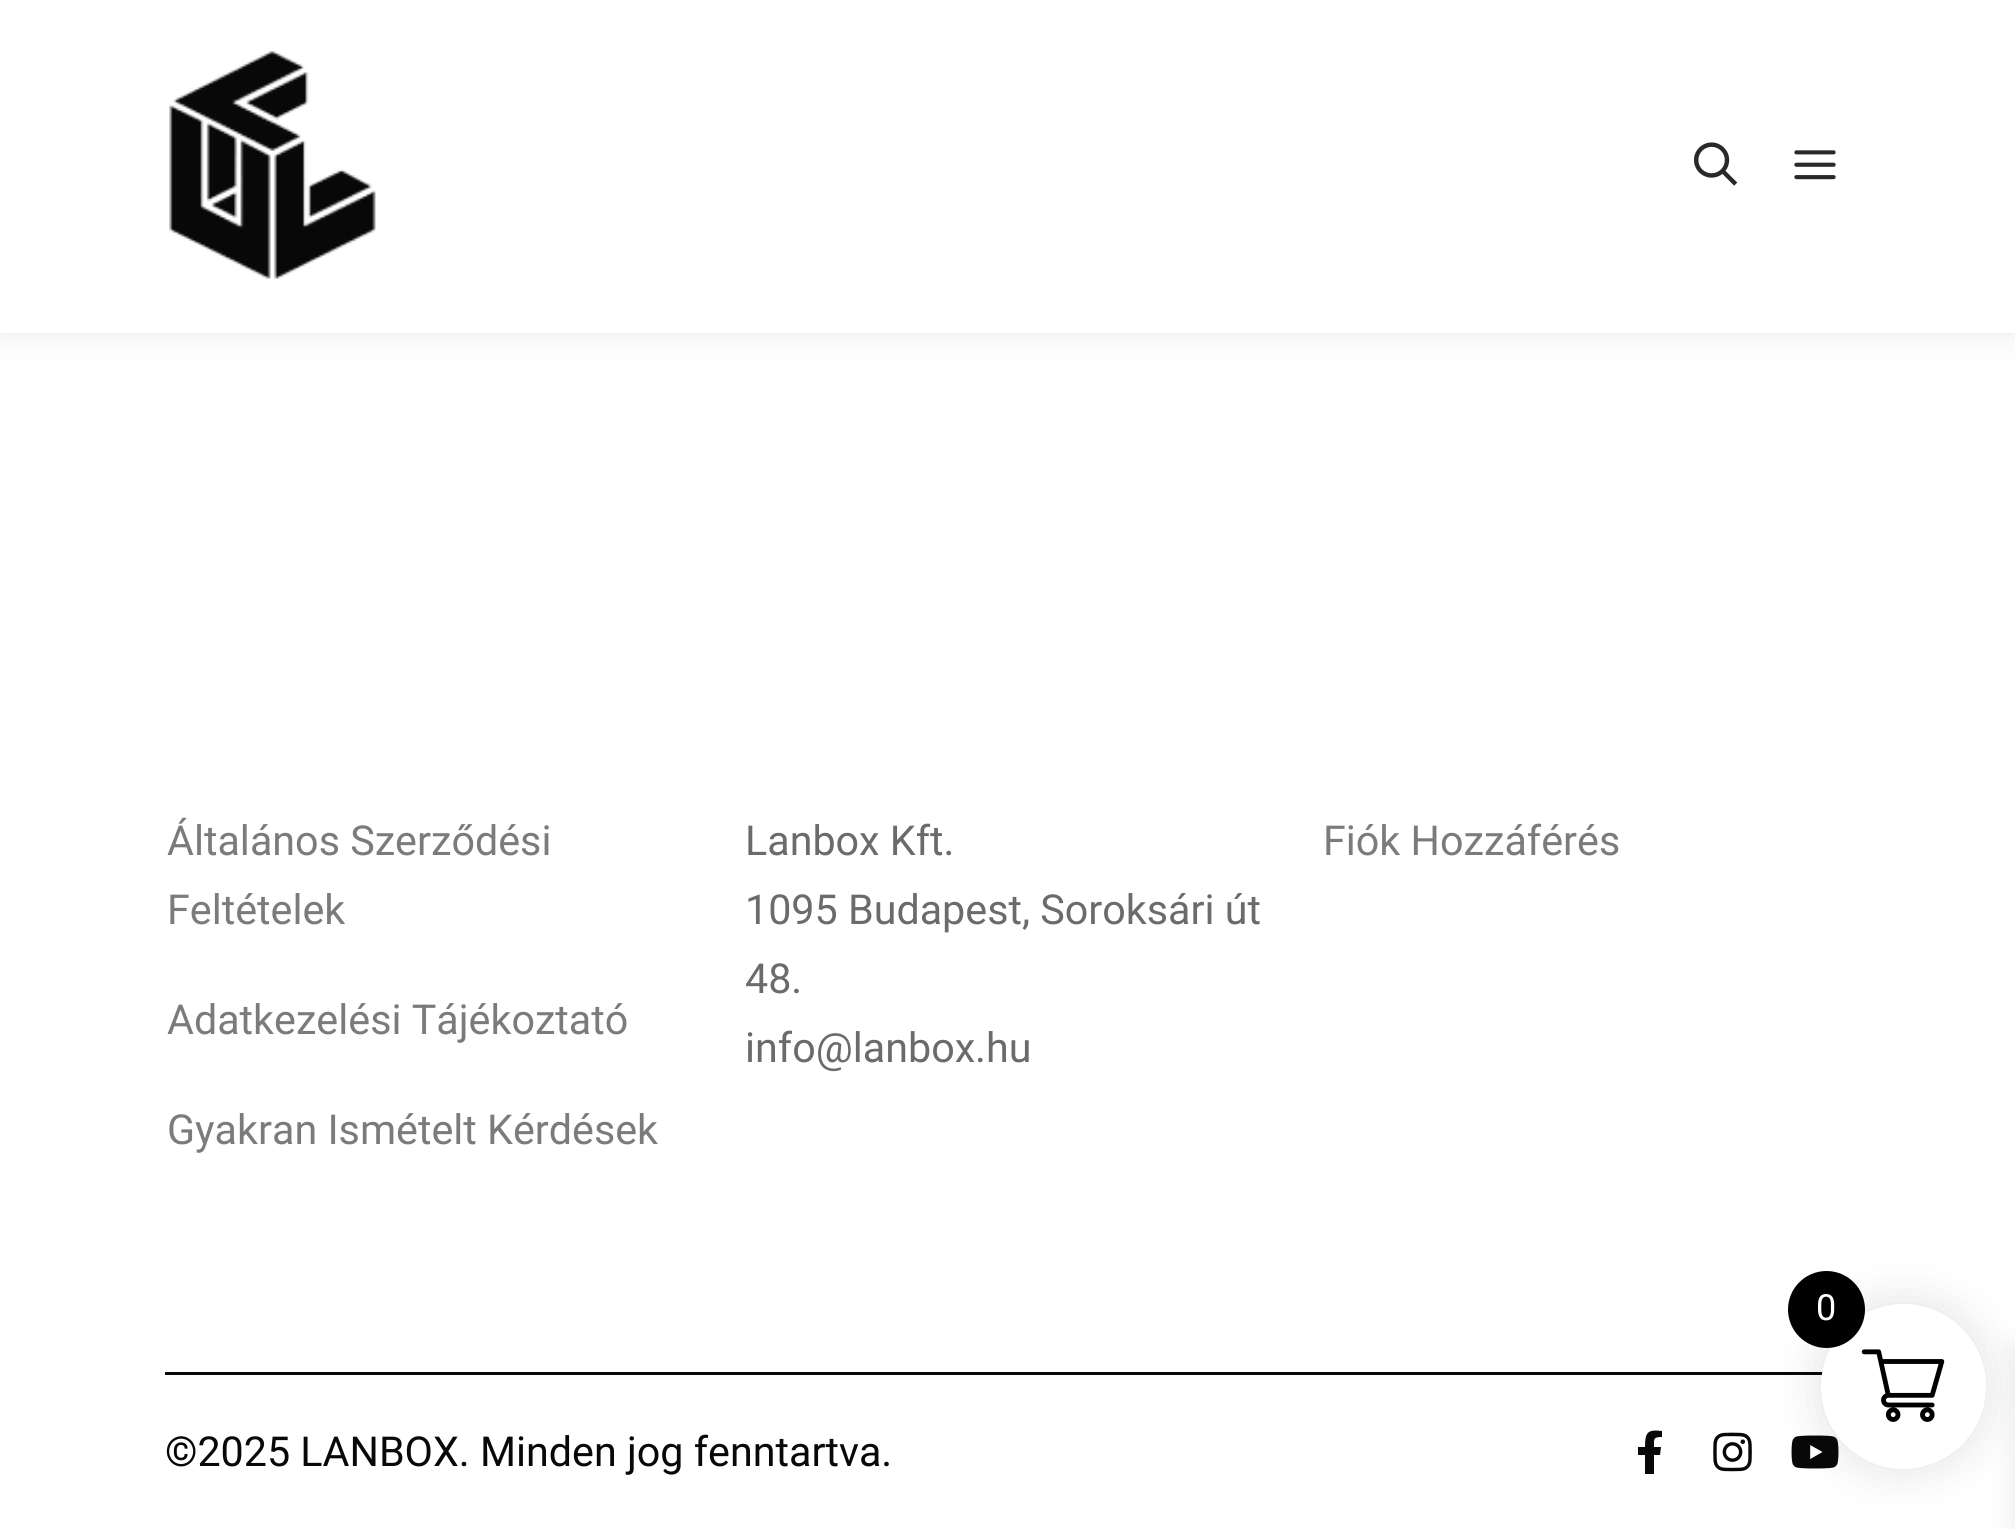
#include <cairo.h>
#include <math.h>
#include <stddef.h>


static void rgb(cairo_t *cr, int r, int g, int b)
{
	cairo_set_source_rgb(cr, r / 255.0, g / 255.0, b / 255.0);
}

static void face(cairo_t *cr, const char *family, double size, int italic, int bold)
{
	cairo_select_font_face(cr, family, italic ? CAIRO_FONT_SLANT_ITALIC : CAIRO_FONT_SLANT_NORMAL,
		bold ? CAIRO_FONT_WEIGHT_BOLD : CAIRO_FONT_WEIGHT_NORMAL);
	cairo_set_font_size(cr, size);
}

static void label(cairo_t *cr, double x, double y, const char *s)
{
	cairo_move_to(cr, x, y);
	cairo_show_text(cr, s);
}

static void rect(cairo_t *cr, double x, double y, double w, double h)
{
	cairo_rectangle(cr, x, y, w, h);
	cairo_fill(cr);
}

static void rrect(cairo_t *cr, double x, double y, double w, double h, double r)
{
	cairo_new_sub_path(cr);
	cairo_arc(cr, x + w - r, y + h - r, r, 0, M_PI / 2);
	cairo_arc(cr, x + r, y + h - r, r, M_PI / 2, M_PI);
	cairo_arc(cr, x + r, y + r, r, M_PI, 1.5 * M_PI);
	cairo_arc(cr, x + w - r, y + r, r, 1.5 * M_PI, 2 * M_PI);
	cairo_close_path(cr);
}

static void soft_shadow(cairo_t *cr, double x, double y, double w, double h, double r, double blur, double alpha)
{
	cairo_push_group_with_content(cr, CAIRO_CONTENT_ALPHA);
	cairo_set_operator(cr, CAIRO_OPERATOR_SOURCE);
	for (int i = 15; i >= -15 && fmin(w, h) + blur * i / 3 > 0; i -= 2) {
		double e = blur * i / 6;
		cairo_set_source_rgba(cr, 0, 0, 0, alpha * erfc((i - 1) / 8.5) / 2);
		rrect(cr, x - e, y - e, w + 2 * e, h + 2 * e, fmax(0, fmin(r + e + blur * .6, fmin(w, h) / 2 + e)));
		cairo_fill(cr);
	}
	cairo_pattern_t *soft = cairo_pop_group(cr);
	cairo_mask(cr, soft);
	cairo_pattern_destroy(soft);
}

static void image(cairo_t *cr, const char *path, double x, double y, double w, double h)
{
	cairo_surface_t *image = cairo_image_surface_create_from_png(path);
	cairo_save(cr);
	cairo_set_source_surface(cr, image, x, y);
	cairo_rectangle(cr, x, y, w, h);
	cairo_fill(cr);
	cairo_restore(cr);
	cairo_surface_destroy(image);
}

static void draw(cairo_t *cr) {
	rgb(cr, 255, 255, 255);
	cairo_paint(cr);
	rgb(cr, 8, 8, 8);
	soft_shadow(cr, 0, 0, 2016, 333, 0, 16.5, 0.09);
	rgb(cr, 255, 255, 255);
	rect(cr, 0, 0, 2015, 333);
	image(cr, "image0.png", 169, 51, 207, 228);
	image(cr, "image1.png", 1694, 142, 44, 44);
	image(cr, "image2.png", 1794, 150, 42, 30);
	face(cr, "Roboto", 41.25, 0, 0);
	rgb(cr, 123, 123, 123);
	label(cr, 167, 855, "Általános Szerződési");
	label(cr, 167, 924, "Feltételek");
	label(cr, 167, 1034, "Adatkezelési Tájékoztató");
	label(cr, 167, 1144, "Gyakran Ismételt Kérdések");
	rgb(cr, 107, 107, 107);
	label(cr, 745, 855, "Lanbox Kft.");
	label(cr, 745, 924, "1095 Budapest, Soroksári út");
	label(cr, 745, 993, "48.");
	label(cr, 745, 1062, "info@lanbox.hu");
	rgb(cr, 123, 123, 123);
	label(cr, 1323, 855, "Fiók Hozzáférés");
	rgb(cr, 8, 8, 8);
	rect(cr, 165, 1372, 1658, 3);
	label(cr, 165, 1466, "©2025 LANBOX. Minden jog fenntartva.");
	cairo_new_path(cr);
	cairo_move_to(cr, 1660, 1455);
	cairo_line_to(cr, 1654, 1455);
	cairo_line_to(cr, 1654, 1474);
	cairo_line_to(cr, 1645, 1474);
	cairo_line_to(cr, 1645, 1455);
	cairo_line_to(cr, 1638, 1455);
	cairo_line_to(cr, 1638, 1447);
	cairo_line_to(cr, 1645, 1447);
	cairo_curve_to(cr, 1645, 1433, 1647, 1429, 1662, 1431);
	cairo_line_to(cr, 1662, 1437);
	cairo_curve_to(cr, 1653, 1437, 1654, 1439, 1654, 1447);
	cairo_line_to(cr, 1661, 1447);
	cairo_close_path(cr);
	cairo_fill(cr);
	image(cr, "image3.png", 1713, 1432, 39, 40);
	image(cr, "image4.png", 1791, 1435, 48, 34);
	rgb(cr, 0, 0, 0);
	soft_shadow(cr, 1815, 1298, 176, 176, 88, 20.5, 0.1);
	soft_shadow(cr, 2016, 1348, 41, 178, 0, 14, 0.1);
	rgb(cr, 255, 255, 255);
	cairo_arc(cr, 1903.5, 1386.5, 82.5, 0, 2 * M_PI);
	cairo_fill(cr);
	rgb(cr, 0, 0, 0);
	cairo_arc(cr, 1826.5, 1309.5, 38.5, 0, 2 * M_PI);
	cairo_fill(cr);
	face(cr, "Roboto", 36, 0, 0);
	rgb(cr, 255, 255, 255);
	label(cr, 1816, 1320, "0");
	image(cr, "image5.png", 1861, 1349, 84, 73);
}

int main(void) {
	cairo_surface_t *surface = cairo_image_surface_create(CAIRO_FORMAT_RGB24, 2015, 1529);
	cairo_t *cr = cairo_create(surface);
	cairo_font_options_t *options = cairo_font_options_create();
	cairo_font_options_set_hint_metrics(options, CAIRO_HINT_METRICS_OFF);
	cairo_font_options_set_hint_style(options, CAIRO_HINT_STYLE_NONE);
	cairo_set_font_options(cr, options);
	cairo_set_miter_limit(cr, 4);
	draw(cr);
	cairo_surface_write_to_png(surface, "render.png");
	cairo_font_options_destroy(options);
	cairo_destroy(cr);
	cairo_surface_destroy(surface);
	return 0;
}
